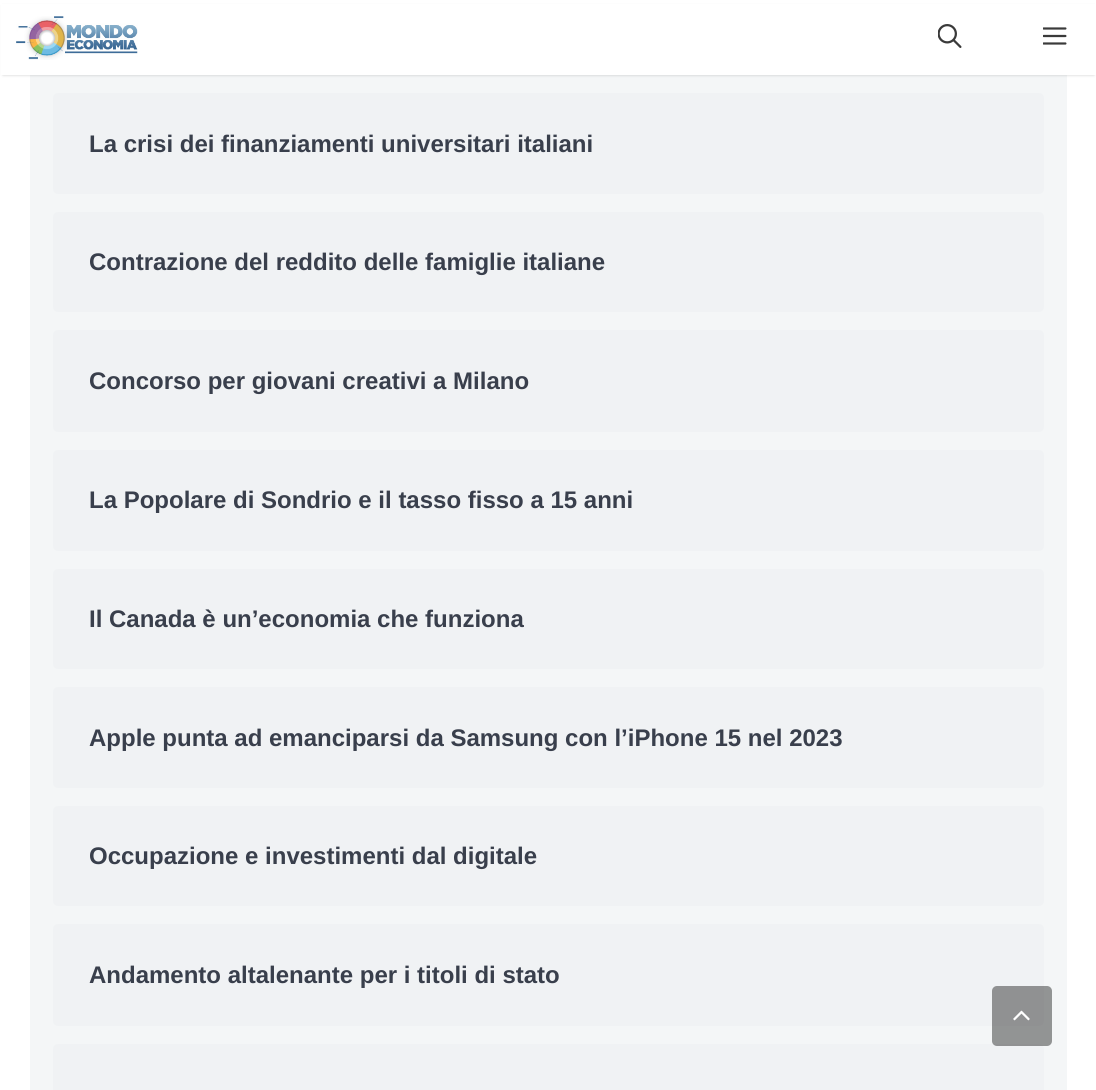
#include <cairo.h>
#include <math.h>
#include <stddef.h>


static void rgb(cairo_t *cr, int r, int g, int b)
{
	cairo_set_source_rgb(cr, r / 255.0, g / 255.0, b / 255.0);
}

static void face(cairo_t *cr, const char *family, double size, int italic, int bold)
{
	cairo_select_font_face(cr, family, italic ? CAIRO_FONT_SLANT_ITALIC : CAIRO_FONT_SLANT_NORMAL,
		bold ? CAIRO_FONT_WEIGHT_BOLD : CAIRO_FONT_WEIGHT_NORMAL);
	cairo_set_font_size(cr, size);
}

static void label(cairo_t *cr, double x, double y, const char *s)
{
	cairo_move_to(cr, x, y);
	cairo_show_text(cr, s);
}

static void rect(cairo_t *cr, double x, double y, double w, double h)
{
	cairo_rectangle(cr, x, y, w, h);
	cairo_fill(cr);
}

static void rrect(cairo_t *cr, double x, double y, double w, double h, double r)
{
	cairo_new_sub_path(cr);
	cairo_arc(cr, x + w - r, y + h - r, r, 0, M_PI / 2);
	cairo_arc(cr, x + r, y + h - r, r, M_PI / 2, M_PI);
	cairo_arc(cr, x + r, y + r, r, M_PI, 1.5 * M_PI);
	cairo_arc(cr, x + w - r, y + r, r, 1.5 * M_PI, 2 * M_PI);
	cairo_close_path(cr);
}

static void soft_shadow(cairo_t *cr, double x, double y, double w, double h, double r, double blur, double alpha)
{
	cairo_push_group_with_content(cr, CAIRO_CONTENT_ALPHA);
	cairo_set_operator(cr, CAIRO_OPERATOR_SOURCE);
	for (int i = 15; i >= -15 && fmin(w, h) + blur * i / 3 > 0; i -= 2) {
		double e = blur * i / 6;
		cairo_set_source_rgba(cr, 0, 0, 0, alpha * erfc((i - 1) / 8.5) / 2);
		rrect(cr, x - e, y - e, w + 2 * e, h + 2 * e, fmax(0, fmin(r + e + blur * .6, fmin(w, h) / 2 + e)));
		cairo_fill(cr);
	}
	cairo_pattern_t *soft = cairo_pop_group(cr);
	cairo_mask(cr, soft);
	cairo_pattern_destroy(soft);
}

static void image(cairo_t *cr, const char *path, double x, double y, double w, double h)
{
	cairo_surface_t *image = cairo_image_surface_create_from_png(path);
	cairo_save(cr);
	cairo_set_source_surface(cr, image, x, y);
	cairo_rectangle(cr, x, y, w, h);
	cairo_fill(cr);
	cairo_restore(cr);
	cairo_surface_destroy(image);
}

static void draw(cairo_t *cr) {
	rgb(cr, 255, 255, 255);
	cairo_paint(cr);
	rgb(cr, 244, 246, 247);
	rect(cr, 30, 75, 1037, 1015);
	rgb(cr, 0, 0, 0);
	soft_shadow(cr, 3, 6, 1091, 69, 0, 1.5, 0.2);
	rgb(cr, 255, 255, 255);
	rect(cr, 1, 4, 1095, 71);
	image(cr, "image0.png", 16, 16, 122, 44);
	image(cr, "image1.png", 938, 24, 24, 24);
	image(cr, "image2.png", 1043, 27, 24, 18);
	rgb(cr, 240, 242, 244);
	rrect(cr, 53, 93, 991, 101, 5);
	cairo_fill(cr);
	face(cr, "Liberation Sans", 24, 0, 1);
	rgb(cr, 57, 63, 76);
	label(cr, 89, 152, "La crisi dei finanziamenti universitari italiani");
	rgb(cr, 240, 242, 244);
	rrect(cr, 53, 212, 991, 100, 5);
	cairo_fill(cr);
	rgb(cr, 57, 63, 76);
	label(cr, 89, 270, "Contrazione del reddito delle famiglie italiane");
	rgb(cr, 240, 242, 244);
	rrect(cr, 53, 330, 991, 102, 5);
	cairo_fill(cr);
	rgb(cr, 57, 63, 76);
	label(cr, 89, 389, "Concorso per giovani creativi a Milano");
	rgb(cr, 240, 242, 244);
	rrect(cr, 53, 450, 991, 101, 5);
	cairo_fill(cr);
	rgb(cr, 57, 63, 76);
	label(cr, 89, 508, "La Popolare di Sondrio e il tasso fisso a 15 anni");
	rgb(cr, 240, 242, 244);
	rrect(cr, 53, 569, 991, 100, 5);
	cairo_fill(cr);
	rgb(cr, 57, 63, 76);
	label(cr, 89, 627, "Il Canada è un’economia che funziona");
	rgb(cr, 240, 242, 244);
	rrect(cr, 53, 687, 991, 101, 5);
	cairo_fill(cr);
	rgb(cr, 57, 63, 76);
	label(cr, 89, 746, "Apple punta ad emanciparsi da Samsung con l’iPhone 15 nel 2023");
	rgb(cr, 240, 242, 244);
	rrect(cr, 53, 806, 991, 100, 5);
	cairo_fill(cr);
	rgb(cr, 57, 63, 76);
	label(cr, 89, 864, "Occupazione e investimenti dal digitale");
	rgb(cr, 240, 242, 244);
	rrect(cr, 53, 924, 991, 102, 5);
	cairo_fill(cr);
	rgb(cr, 57, 63, 76);
	label(cr, 89, 983, "Andamento altalenante per i titoli di stato");
	rgb(cr, 240, 242, 244);
	rrect(cr, 53, 1044, 991, 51, 5);
	cairo_fill(cr);
	cairo_set_source_rgba(cr, 0, 0, 0, 0.4);
	rrect(cr, 992, 986, 60, 60, 5);
	cairo_fill(cr);
	image(cr, "image3.png", 1013, 1010, 17, 11);
}

int main(void) {
	cairo_surface_t *surface = cairo_image_surface_create(CAIRO_FORMAT_RGB24, 1096, 1090);
	cairo_t *cr = cairo_create(surface);
	cairo_font_options_t *options = cairo_font_options_create();
	cairo_font_options_set_hint_metrics(options, CAIRO_HINT_METRICS_OFF);
	cairo_font_options_set_hint_style(options, CAIRO_HINT_STYLE_NONE);
	cairo_set_font_options(cr, options);
	cairo_set_miter_limit(cr, 4);
	draw(cr);
	cairo_surface_write_to_png(surface, "render.png");
	cairo_font_options_destroy(options);
	cairo_destroy(cr);
	cairo_surface_destroy(surface);
	return 0;
}
